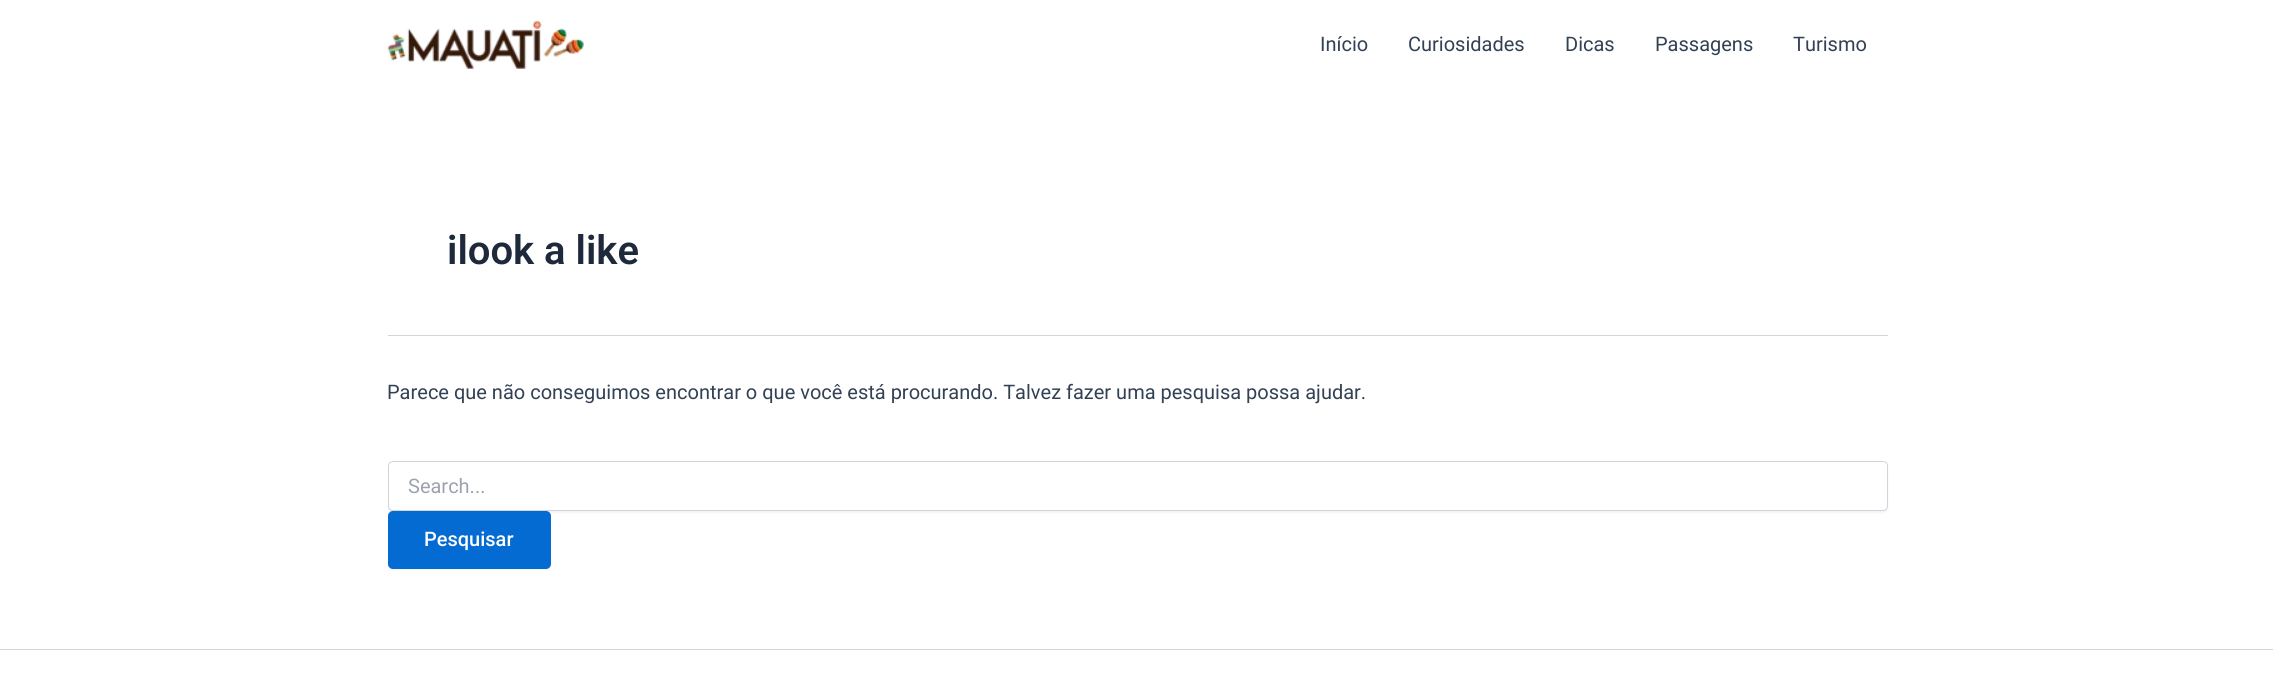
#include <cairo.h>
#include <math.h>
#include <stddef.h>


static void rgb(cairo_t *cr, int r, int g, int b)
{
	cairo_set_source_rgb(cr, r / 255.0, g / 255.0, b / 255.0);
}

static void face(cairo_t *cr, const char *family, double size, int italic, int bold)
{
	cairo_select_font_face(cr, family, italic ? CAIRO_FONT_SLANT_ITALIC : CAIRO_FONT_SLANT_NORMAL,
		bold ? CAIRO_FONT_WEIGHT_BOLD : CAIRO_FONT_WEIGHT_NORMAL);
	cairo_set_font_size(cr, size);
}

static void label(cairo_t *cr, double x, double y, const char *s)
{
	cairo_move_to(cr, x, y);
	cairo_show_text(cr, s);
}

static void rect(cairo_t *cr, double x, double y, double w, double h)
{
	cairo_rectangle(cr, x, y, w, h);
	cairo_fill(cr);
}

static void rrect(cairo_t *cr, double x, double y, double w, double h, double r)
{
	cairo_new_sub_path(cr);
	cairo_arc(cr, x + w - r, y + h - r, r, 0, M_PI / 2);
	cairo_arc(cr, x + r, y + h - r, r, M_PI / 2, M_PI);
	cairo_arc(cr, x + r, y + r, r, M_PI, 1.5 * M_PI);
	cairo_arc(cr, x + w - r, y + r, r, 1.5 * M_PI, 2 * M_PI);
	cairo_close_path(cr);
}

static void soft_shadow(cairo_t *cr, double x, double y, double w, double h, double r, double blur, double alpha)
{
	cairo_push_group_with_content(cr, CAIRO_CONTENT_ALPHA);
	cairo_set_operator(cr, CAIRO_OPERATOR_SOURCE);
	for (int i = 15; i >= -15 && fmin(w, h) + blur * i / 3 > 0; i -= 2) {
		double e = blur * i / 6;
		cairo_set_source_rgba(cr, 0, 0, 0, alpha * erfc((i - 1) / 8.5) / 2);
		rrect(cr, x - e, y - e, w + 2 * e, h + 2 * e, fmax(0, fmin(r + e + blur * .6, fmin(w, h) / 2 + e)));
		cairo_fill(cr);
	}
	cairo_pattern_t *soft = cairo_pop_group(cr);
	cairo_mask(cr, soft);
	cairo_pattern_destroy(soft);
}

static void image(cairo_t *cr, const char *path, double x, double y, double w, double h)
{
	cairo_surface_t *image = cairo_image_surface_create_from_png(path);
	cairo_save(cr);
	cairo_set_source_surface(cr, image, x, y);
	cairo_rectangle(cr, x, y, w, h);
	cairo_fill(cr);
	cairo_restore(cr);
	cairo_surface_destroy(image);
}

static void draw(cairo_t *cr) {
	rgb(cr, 255, 255, 255);
	cairo_paint(cr);
	image(cr, "image0.png", 387, 21, 197, 48);
	face(cr, "Roboto", 20, 0, 0);
	rgb(cr, 51, 65, 85);
	label(cr, 1320, 51, "Início");
	label(cr, 1408, 51, "Curiosidades");
	label(cr, 1565, 51, "Dicas");
	label(cr, 1655, 51, "Passagens");
	label(cr, 1793, 51, "Turismo");
	rgb(cr, 209, 213, 219);
	rect(cr, 388, 335, 1500, 1);
	face(cr, "Roboto SemiBold", 40, 0, 0);
	rgb(cr, 30, 41, 59);
	label(cr, 447, 264, "ilook a like");
	face(cr, "Roboto", 20, 0, 0);
	rgb(cr, 51, 65, 85);
	label(cr, 387, 399, "Parece que não conseguimos encontrar o que você está procurando. Talvez fazer uma pesquisa possa ajudar.");
	rgb(cr, 0, 0, 0);
	soft_shadow(cr, 388, 463, 1500, 50, 5, 1, 0.05);
	rgb(cr, 255, 255, 255);
	rrect(cr, 388.5, 461.5, 1499, 49, 4.5);
	cairo_fill_preserve(cr);
	rgb(cr, 209, 213, 219);
	cairo_set_line_width(cr, 1);
	cairo_stroke(cr);
	rgb(cr, 156, 163, 175);
	label(cr, 408, 493, "Search...");
	rgb(cr, 0, 0, 0);
	soft_shadow(cr, 388, 513, 163, 57, 5, 1, 0.05);
	rgb(cr, 4, 107, 210);
	rrect(cr, 388, 511, 163, 58, 5);
	cairo_fill(cr);
	face(cr, "Roboto Medium", 20, 0, 0);
	rgb(cr, 255, 255, 255);
	label(cr, 424, 546, "Pesquisar");
	rgb(cr, 209, 213, 219);
	rect(cr, 0, 649, 2273, 1);
}

int main(void) {
	cairo_surface_t *surface = cairo_image_surface_create(CAIRO_FORMAT_RGB24, 2273, 675);
	cairo_t *cr = cairo_create(surface);
	cairo_font_options_t *options = cairo_font_options_create();
	cairo_font_options_set_hint_metrics(options, CAIRO_HINT_METRICS_OFF);
	cairo_font_options_set_hint_style(options, CAIRO_HINT_STYLE_NONE);
	cairo_set_font_options(cr, options);
	cairo_set_miter_limit(cr, 4);
	draw(cr);
	cairo_surface_write_to_png(surface, "render.png");
	cairo_font_options_destroy(options);
	cairo_destroy(cr);
	cairo_surface_destroy(surface);
	return 0;
}
